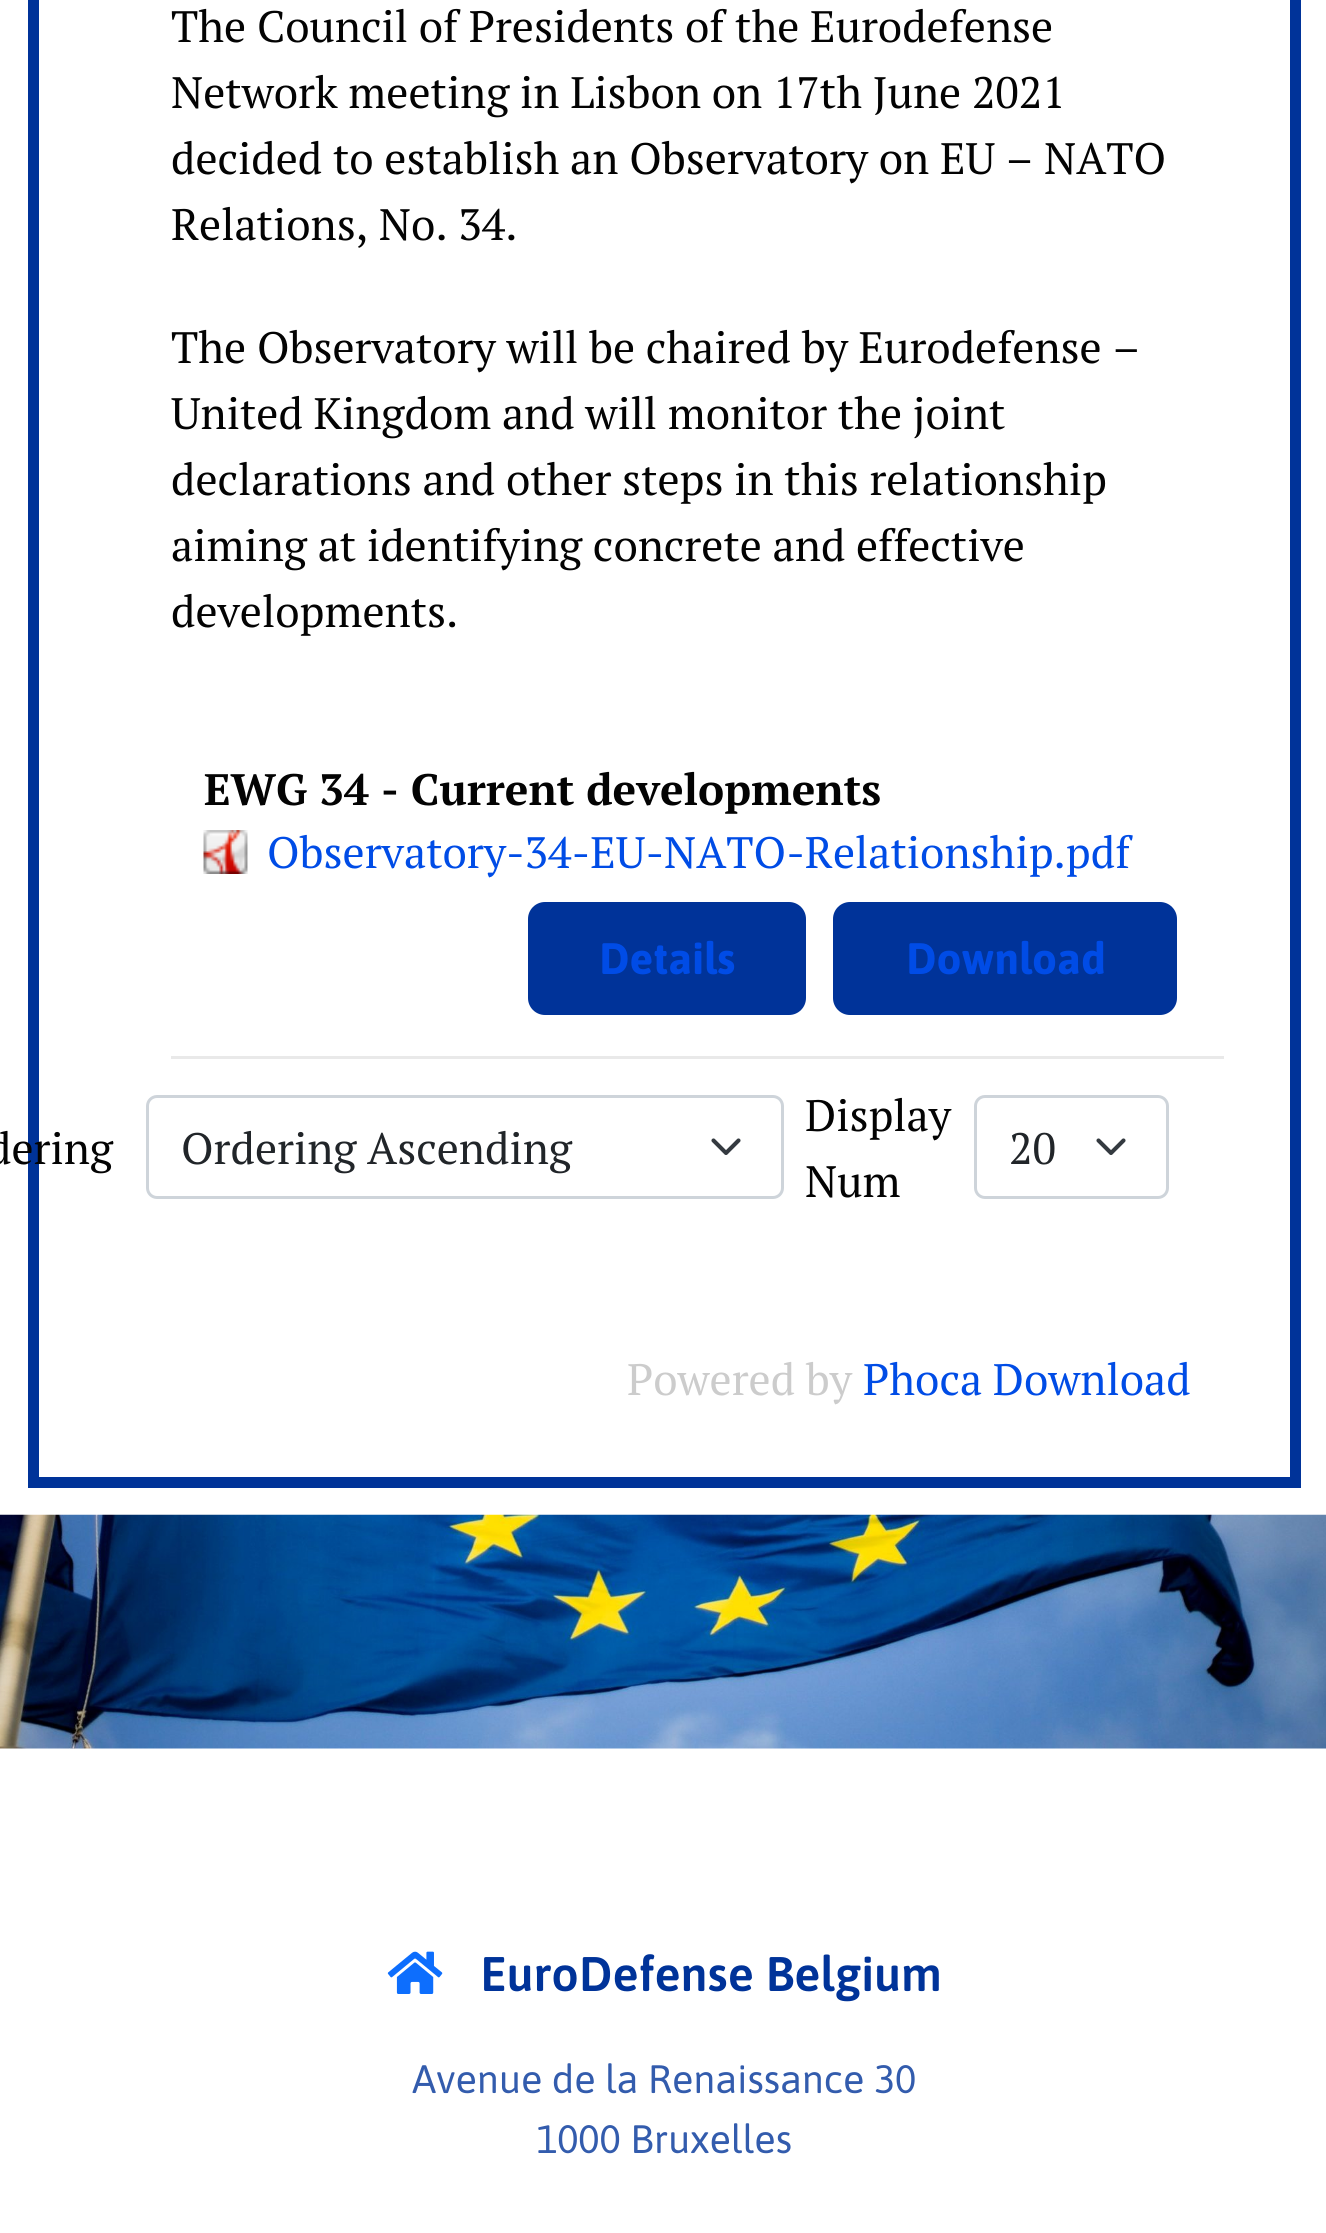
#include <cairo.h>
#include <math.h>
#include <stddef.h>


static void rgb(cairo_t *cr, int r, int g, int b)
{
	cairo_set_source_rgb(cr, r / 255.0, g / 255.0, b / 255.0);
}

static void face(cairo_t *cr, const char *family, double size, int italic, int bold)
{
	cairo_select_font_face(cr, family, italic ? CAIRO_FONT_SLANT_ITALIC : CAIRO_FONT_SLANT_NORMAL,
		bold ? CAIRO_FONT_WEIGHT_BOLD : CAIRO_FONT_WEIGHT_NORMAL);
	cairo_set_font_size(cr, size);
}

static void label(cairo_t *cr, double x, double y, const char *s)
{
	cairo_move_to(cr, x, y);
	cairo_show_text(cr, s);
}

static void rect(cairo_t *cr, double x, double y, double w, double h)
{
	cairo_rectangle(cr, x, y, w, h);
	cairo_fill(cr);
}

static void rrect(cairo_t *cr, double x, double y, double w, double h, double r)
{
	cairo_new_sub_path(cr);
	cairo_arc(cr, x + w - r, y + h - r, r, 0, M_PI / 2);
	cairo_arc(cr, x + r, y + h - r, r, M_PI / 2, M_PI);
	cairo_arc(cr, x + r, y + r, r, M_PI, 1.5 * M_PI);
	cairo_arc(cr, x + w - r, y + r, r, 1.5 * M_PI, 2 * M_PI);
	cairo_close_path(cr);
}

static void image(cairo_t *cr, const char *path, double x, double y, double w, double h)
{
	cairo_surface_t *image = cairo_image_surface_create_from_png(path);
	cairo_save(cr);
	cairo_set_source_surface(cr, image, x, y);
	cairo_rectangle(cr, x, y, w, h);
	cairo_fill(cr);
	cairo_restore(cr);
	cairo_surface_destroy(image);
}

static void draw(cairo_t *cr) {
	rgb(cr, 255, 255, 255);
	cairo_paint(cr);
	cairo_rectangle(cr, 33.5, -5.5, 1262, 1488);
	rgb(cr, 0, 51, 153);
	cairo_set_line_width(cr, 11);
	cairo_stroke(cr);
	face(cr, "PT Serif", 44, 0, 0);
	rgb(cr, 3, 3, 3);
	label(cr, 171, 42, "The Council of Presidents of the Eurodefense");
	label(cr, 171, 108, "Network meeting in Lisbon on 17th June 2021");
	label(cr, 171, 174, "decided to establish an Observatory on EU – NATO");
	label(cr, 171, 240, "Relations, No. 34.");
	label(cr, 171, 363, "The Observatory will be chaired by Eurodefense –");
	label(cr, 171, 429, "United Kingdom and will monitor the joint");
	label(cr, 171, 495, "declarations and other steps in this relationship");
	label(cr, 171, 561, "aiming at identifying concrete and effective");
	label(cr, 171, 627, "developments.");
	face(cr, "PT Serif", 44, 0, 1);
	label(cr, 204, 805, "EWG 34 - Current developments");
	image(cr, "image0.png", 203, 830, 45, 44);
	face(cr, "PT Serif", 44, 0, 0);
	rgb(cr, 0, 76, 230);
	label(cr, 267, 868, "Observatory-34-EU-NATO-Relationship.pdf");
	rgb(cr, 0, 51, 153);
	rrect(cr, 528, 902, 278, 113, 17);
	cairo_fill(cr);
	face(cr, "Asap", 44, 0, 1);
	rgb(cr, 0, 76, 230);
	label(cr, 599, 974, "Details");
	rgb(cr, 0, 51, 153);
	rrect(cr, 833, 902, 344, 113, 17);
	cairo_fill(cr);
	rgb(cr, 0, 76, 230);
	label(cr, 906, 974, "Download");
	rgb(cr, 233, 233, 233);
	rect(cr, 171, 1056, 1053, 3);
	face(cr, "PT Serif", 44, 0, 0);
	rgb(cr, 3, 3, 3);
	label(cr, 805, 1131, "Display");
	label(cr, -13, 1164, "dering");
	cairo_new_path(cr);
	cairo_move_to(cr, 713.5, 1140.5);
	cairo_line_to(cr, 726, 1153);
	cairo_line_to(cr, 738.5, 1140.5);
	rgb(cr, 52, 58, 64);
	cairo_set_line_width(cr, 4.1);
	cairo_set_line_cap(cr, CAIRO_LINE_CAP_ROUND);
	cairo_set_line_join(cr, CAIRO_LINE_JOIN_ROUND);
	cairo_stroke(cr);
	rrect(cr, 147.5, 1096.5, 635, 101, 9.5);
	rgb(cr, 206, 212, 218);
	cairo_set_line_width(cr, 3);
	cairo_set_line_cap(cr, CAIRO_LINE_CAP_BUTT);
	cairo_set_line_join(cr, CAIRO_LINE_JOIN_MITER);
	cairo_stroke(cr);
	rgb(cr, 33, 37, 41);
	label(cr, 181, 1164, "Ordering Ascending");
	cairo_new_path(cr);
	cairo_move_to(cr, 1098.5, 1140.5);
	cairo_line_to(cr, 1111, 1153);
	cairo_line_to(cr, 1123.5, 1140.5);
	rgb(cr, 52, 58, 64);
	cairo_set_line_width(cr, 4.1);
	cairo_set_line_cap(cr, CAIRO_LINE_CAP_ROUND);
	cairo_set_line_join(cr, CAIRO_LINE_JOIN_ROUND);
	cairo_stroke(cr);
	rrect(cr, 975.5, 1096.5, 192, 101, 9.5);
	rgb(cr, 206, 212, 218);
	cairo_set_line_width(cr, 3);
	cairo_set_line_cap(cr, CAIRO_LINE_CAP_BUTT);
	cairo_set_line_join(cr, CAIRO_LINE_JOIN_MITER);
	cairo_stroke(cr);
	rgb(cr, 33, 37, 41);
	label(cr, 1009, 1164, "20");
	rgb(cr, 3, 3, 3);
	label(cr, 805, 1197, "Num");
	rgb(cr, 204, 204, 204);
	label(cr, 627, 1395, "Powered by");
	rgb(cr, 0, 76, 230);
	label(cr, 863, 1395, "Phoca Download");
	image(cr, "image1.png", 0, 1514, 1326, 235);
	image(cr, "image2.png", 387, 1951, 56, 43);
	face(cr, "Asap SemiBold", 48.5, 0, 0);
	rgb(cr, 0, 51, 153);
	label(cr, 480, 1991, "EuroDefense Belgium");
	face(cr, "Asap", 39.6, 0, 0);
	rgb(cr, 51, 92, 173);
	label(cr, 412, 2093, "Avenue de la Renaissance 30");
	label(cr, 536, 2153, "1000 Bruxelles");
}

int main(void) {
	cairo_surface_t *surface = cairo_image_surface_create(CAIRO_FORMAT_RGB24, 1326, 2233);
	cairo_t *cr = cairo_create(surface);
	cairo_font_options_t *options = cairo_font_options_create();
	cairo_font_options_set_hint_metrics(options, CAIRO_HINT_METRICS_OFF);
	cairo_font_options_set_hint_style(options, CAIRO_HINT_STYLE_NONE);
	cairo_set_font_options(cr, options);
	cairo_set_miter_limit(cr, 4);
	draw(cr);
	cairo_surface_write_to_png(surface, "render.png");
	cairo_font_options_destroy(options);
	cairo_destroy(cr);
	cairo_surface_destroy(surface);
	return 0;
}
